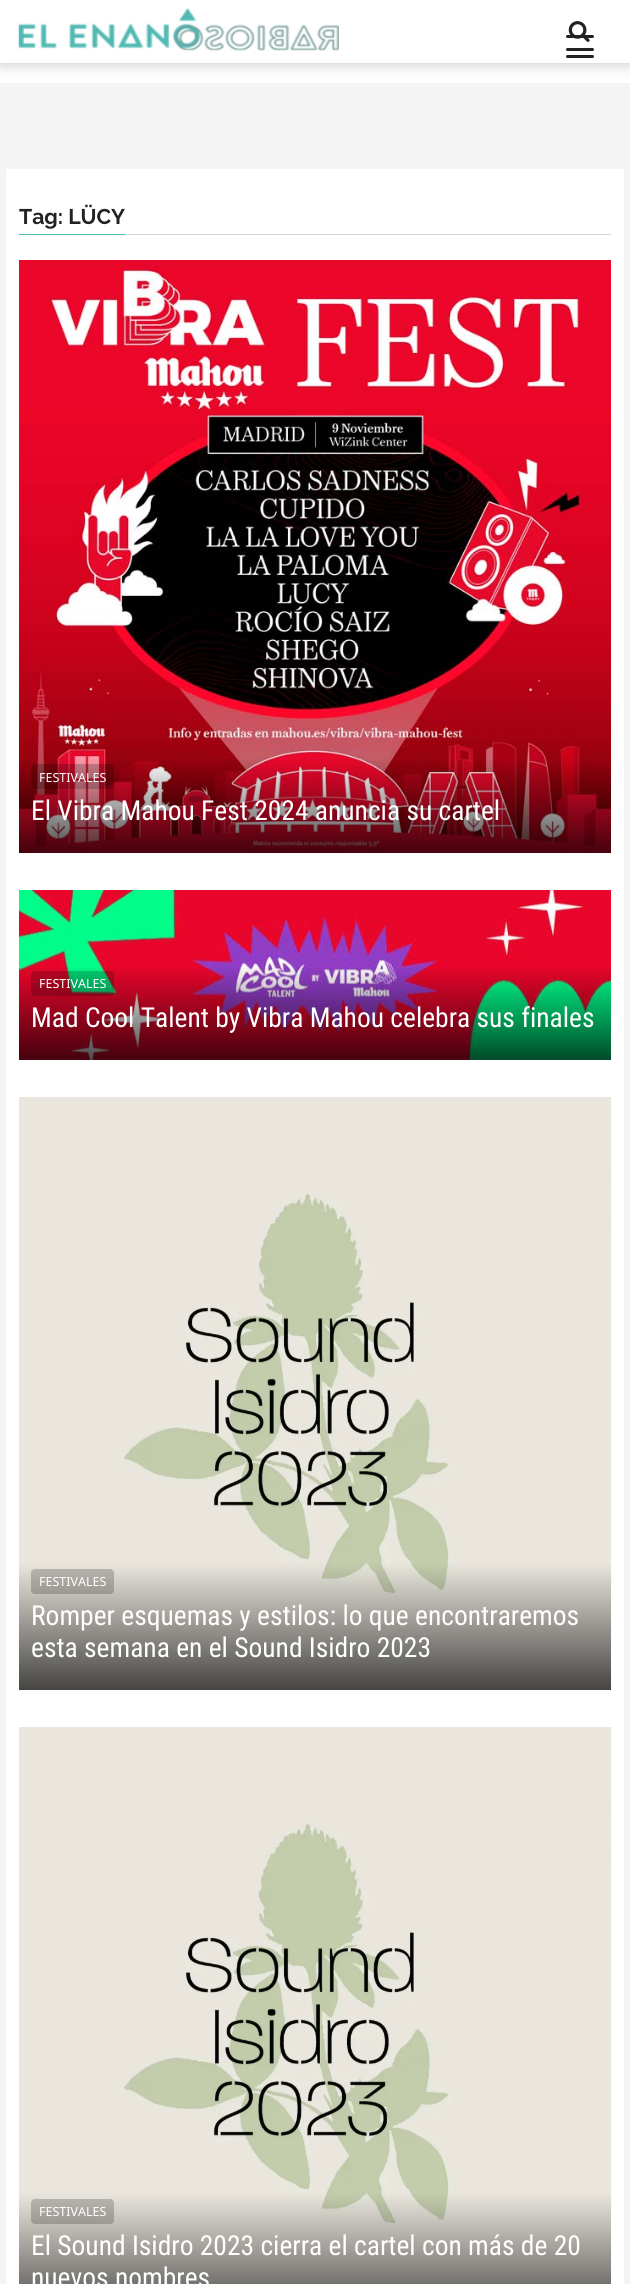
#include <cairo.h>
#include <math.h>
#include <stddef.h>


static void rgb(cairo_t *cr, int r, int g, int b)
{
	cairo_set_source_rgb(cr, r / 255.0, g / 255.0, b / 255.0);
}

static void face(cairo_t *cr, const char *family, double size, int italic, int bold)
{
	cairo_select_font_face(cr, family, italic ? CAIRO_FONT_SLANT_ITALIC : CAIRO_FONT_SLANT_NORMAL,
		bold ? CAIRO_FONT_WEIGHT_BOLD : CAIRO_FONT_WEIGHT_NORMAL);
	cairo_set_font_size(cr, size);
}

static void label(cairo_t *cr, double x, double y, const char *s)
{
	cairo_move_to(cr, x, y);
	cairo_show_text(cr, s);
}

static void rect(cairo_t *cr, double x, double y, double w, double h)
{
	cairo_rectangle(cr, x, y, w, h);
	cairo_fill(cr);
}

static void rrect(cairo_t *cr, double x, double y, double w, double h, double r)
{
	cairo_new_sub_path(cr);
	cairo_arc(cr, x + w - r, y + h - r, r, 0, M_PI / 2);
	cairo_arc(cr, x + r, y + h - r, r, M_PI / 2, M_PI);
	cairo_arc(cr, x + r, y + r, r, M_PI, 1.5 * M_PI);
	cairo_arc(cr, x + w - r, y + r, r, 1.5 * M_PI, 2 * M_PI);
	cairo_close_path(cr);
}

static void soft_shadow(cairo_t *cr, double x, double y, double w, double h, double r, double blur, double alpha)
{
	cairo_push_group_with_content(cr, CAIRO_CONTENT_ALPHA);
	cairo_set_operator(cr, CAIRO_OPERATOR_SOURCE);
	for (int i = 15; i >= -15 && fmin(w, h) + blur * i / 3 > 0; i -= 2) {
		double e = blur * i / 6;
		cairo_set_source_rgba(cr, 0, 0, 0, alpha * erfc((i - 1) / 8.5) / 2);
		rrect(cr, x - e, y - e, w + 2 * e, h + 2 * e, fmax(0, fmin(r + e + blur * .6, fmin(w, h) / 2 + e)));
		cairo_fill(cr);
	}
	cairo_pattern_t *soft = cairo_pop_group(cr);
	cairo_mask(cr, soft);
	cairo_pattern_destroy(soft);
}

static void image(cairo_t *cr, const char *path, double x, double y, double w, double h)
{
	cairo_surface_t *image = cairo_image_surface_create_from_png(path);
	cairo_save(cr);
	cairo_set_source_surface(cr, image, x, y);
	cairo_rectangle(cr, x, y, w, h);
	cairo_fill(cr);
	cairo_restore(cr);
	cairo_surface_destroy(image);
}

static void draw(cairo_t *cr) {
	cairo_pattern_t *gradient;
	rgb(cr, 244, 244, 244);
	cairo_paint(cr);
	rgb(cr, 255, 255, 255);
	rect(cr, 0, 0, 630, 83);
	cairo_save(cr);
	cairo_set_fill_rule(cr, CAIRO_FILL_RULE_EVEN_ODD);
	cairo_new_path(cr);
	cairo_move_to(cr, 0, 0);
	cairo_line_to(cr, 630, 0);
	cairo_line_to(cr, 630, 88);
	cairo_line_to(cr, 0, 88);
	cairo_close_path(cr);
	cairo_move_to(cr, 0, 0);
	cairo_line_to(cr, 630, 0);
	cairo_line_to(cr, 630, 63);
	cairo_line_to(cr, 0, 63);
	cairo_close_path(cr);
	cairo_clip(cr);
	rgb(cr, 0, 0, 0);
	soft_shadow(cr, 0, 0, 630, 63, 0, 8, 0.25);
	cairo_restore(cr);
	cairo_set_source_rgba(cr, 1, 1, 1, 0.9);
	rect(cr, 0, 62, 630, 1);
	image(cr, "image0.png", 18, 8, 321, 43);
	rgb(cr, 34, 34, 34);
	rrect(cr, 566, 35, 28, 3, 1.5);
	cairo_fill(cr);
	image(cr, "image1.png", 568, 21, 22, 21);
	rrect(cr, 566, 48, 28, 3, 1.5);
	cairo_fill(cr);
	rrect(cr, 566, 55, 28, 3, 1.5);
	cairo_fill(cr);
	rgb(cr, 255, 255, 255);
	rect(cr, 6, 169, 618, 2115);
	rgb(cr, 214, 214, 214);
	rect(cr, 125, 234, 486, 1);
	rgb(cr, 81, 185, 178);
	rect(cr, 19, 234, 106, 1);
	face(cr, "Raleway", 21.25, 0, 1);
	rgb(cr, 34, 34, 34);
	label(cr, 19, 224, "Tag: LÜCY");
	image(cr, "image2.png", 19, 260, 592, 593);
	cairo_set_source_rgba(cr, 0, 0, 0, 0.2);
	rrect(cr, 31, 764, 83, 25, 4);
	cairo_fill(cr);
	face(cr, "Noto Sans", 12.5, 0, 0);
	rgb(cr, 255, 255, 255);
	label(cr, 39, 782, "FESTIVALES");
	face(cr, "Roboto Condensed", 27.5, 0, 0);
	label(cr, 31, 820, "El Vibra Mahou Fest 2024 anuncia su cartel");
	image(cr, "image3.png", 19, 890, 592, 170);
	gradient = cairo_pattern_create_linear(315, 1060, 315, 965);
	cairo_pattern_add_color_stop_rgba(gradient, 0, 0, 0, 0, 0.7);
	cairo_pattern_add_color_stop_rgba(gradient, 1, 0, 0, 0, 0);
	cairo_set_source(cr, gradient);
	cairo_pattern_destroy(gradient);
	rect(cr, 19, 968, 592, 92);
	cairo_set_source_rgba(cr, 0, 0, 0, 0.2);
	rrect(cr, 31, 971, 83, 25, 4);
	cairo_fill(cr);
	face(cr, "Noto Sans", 12.5, 0, 0);
	rgb(cr, 255, 255, 255);
	label(cr, 39, 988, "FESTIVALES");
	face(cr, "Roboto Condensed", 27.5, 0, 0);
	label(cr, 31, 1027, "Mad Cool Talent by Vibra Mahou celebra sus finales");
	image(cr, "image4.png", 19, 1097, 593, 593);
	cairo_set_source_rgba(cr, 0, 0, 0, 0.2);
	rrect(cr, 31, 1569, 83, 25, 4);
	cairo_fill(cr);
	face(cr, "Noto Sans", 12.5, 0, 0);
	rgb(cr, 255, 255, 255);
	label(cr, 39, 1586, "FESTIVALES");
	face(cr, "Roboto Condensed", 27.5, 0, 0);
	label(cr, 31, 1625, "Romper esquemas y estilos: lo que encontraremos");
	label(cr, 31, 1657, "esta semana en el Sound Isidro 2023");
	image(cr, "image5.png", 19, 1727, 593, 557);
	cairo_set_source_rgba(cr, 0, 0, 0, 0.2);
	rrect(cr, 31, 2199, 83, 25, 4);
	cairo_fill(cr);
	face(cr, "Noto Sans", 12.5, 0, 0);
	rgb(cr, 255, 255, 255);
	label(cr, 39, 2216, "FESTIVALES");
	face(cr, "Roboto Condensed", 27.5, 0, 0);
	label(cr, 31, 2255, "El Sound Isidro 2023 cierra el cartel con más de 20");
	label(cr, 31, 2287, "nuevos nombres");
}

int main(void) {
	cairo_surface_t *surface = cairo_image_surface_create(CAIRO_FORMAT_RGB24, 630, 2284);
	cairo_t *cr = cairo_create(surface);
	cairo_font_options_t *options = cairo_font_options_create();
	cairo_font_options_set_hint_metrics(options, CAIRO_HINT_METRICS_OFF);
	cairo_font_options_set_hint_style(options, CAIRO_HINT_STYLE_NONE);
	cairo_set_font_options(cr, options);
	cairo_set_miter_limit(cr, 4);
	draw(cr);
	cairo_surface_write_to_png(surface, "render.png");
	cairo_font_options_destroy(options);
	cairo_destroy(cr);
	cairo_surface_destroy(surface);
	return 0;
}
